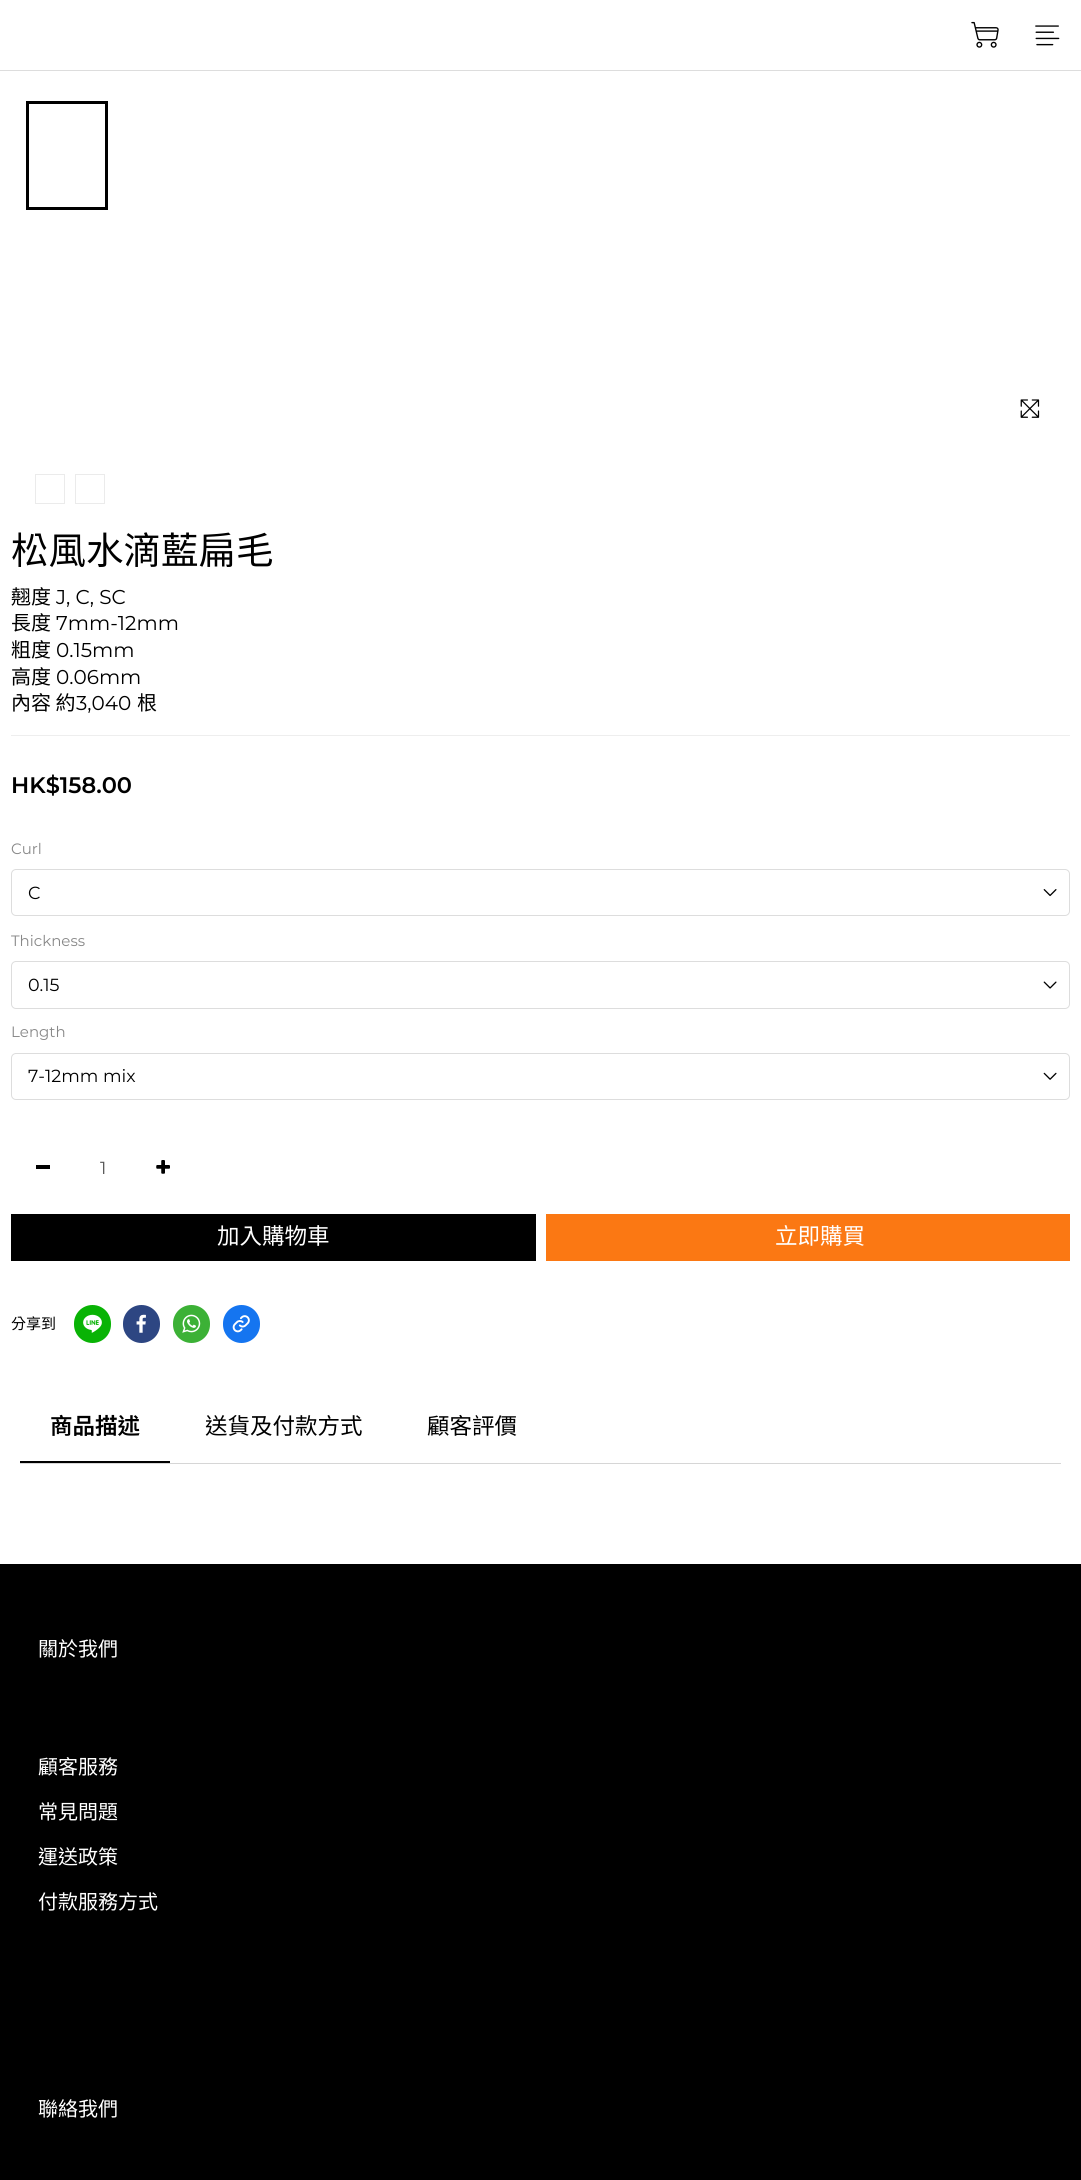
#include <cairo.h>
#include <math.h>
#include <stddef.h>


static void rgb(cairo_t *cr, int r, int g, int b)
{
	cairo_set_source_rgb(cr, r / 255.0, g / 255.0, b / 255.0);
}

static void face(cairo_t *cr, const char *family, double size, int italic, int bold)
{
	cairo_select_font_face(cr, family, italic ? CAIRO_FONT_SLANT_ITALIC : CAIRO_FONT_SLANT_NORMAL,
		bold ? CAIRO_FONT_WEIGHT_BOLD : CAIRO_FONT_WEIGHT_NORMAL);
	cairo_set_font_size(cr, size);
}

static void label(cairo_t *cr, double x, double y, const char *s)
{
	cairo_move_to(cr, x, y);
	cairo_show_text(cr, s);
}

static void rect(cairo_t *cr, double x, double y, double w, double h)
{
	cairo_rectangle(cr, x, y, w, h);
	cairo_fill(cr);
}

static void rrect(cairo_t *cr, double x, double y, double w, double h, double r)
{
	cairo_new_sub_path(cr);
	cairo_arc(cr, x + w - r, y + h - r, r, 0, M_PI / 2);
	cairo_arc(cr, x + r, y + h - r, r, M_PI / 2, M_PI);
	cairo_arc(cr, x + r, y + r, r, M_PI, 1.5 * M_PI);
	cairo_arc(cr, x + w - r, y + r, r, 1.5 * M_PI, 2 * M_PI);
	cairo_close_path(cr);
}

static void image(cairo_t *cr, const char *path, double x, double y, double w, double h)
{
	cairo_surface_t *image = cairo_image_surface_create_from_png(path);
	cairo_save(cr);
	cairo_set_source_surface(cr, image, x, y);
	cairo_rectangle(cr, x, y, w, h);
	cairo_fill(cr);
	cairo_restore(cr);
	cairo_surface_destroy(image);
}

static void draw(cairo_t *cr) {
	rgb(cr, 255, 255, 255);
	cairo_paint(cr);
	image(cr, "image0.png", 971, 21, 28, 27);
	image(cr, "image1.png", 1035, 25, 25, 21);
	rgb(cr, 221, 221, 221);
	rect(cr, 0, 70, 1081, 1);
	cairo_rectangle(cr, 27.5, 102.5, 79, 106);
	rgb(cr, 0, 0, 0);
	cairo_set_line_width(cr, 3);
	cairo_stroke(cr);
	cairo_rectangle(cr, 35.5, 474.5, 29, 29);
	rgb(cr, 235, 235, 235);
	cairo_set_line_width(cr, 1);
	cairo_stroke(cr);
	cairo_rectangle(cr, 75.5, 474.5, 29, 29);
	cairo_stroke(cr);
	image(cr, "image2.png", 1020, 399, 20, 19);
	face(cr, "Noto Sans TC", 37.5, 0, 0);
	rgb(cr, 0, 0, 0);
	label(cr, 11, 564, "松風水滴藍扁毛");
	face(cr, "Noto Sans TC", 20, 0, 0);
	label(cr, 11, 604, "翹度");
	face(cr, "Montserrat", 20, 0, 0);
	label(cr, 56, 604, "J, C, SC");
	face(cr, "Noto Sans TC", 20, 0, 0);
	label(cr, 11, 630, "長度");
	face(cr, "Montserrat", 20, 0, 0);
	label(cr, 56, 630, "7mm-12mm");
	face(cr, "Noto Sans TC", 20, 0, 0);
	label(cr, 11, 657, "粗度");
	face(cr, "Montserrat", 20, 0, 0);
	label(cr, 56, 657, "0.15mm");
	face(cr, "Noto Sans TC", 20, 0, 0);
	label(cr, 11, 684, "高度");
	face(cr, "Montserrat", 20, 0, 0);
	label(cr, 56, 684, "0.06mm");
	face(cr, "Noto Sans TC", 20, 0, 0);
	label(cr, 11, 710, "內容 約");
	face(cr, "Montserrat", 20, 0, 0);
	label(cr, 76, 710, "3,040");
	face(cr, "Noto Sans TC", 20, 0, 0);
	label(cr, 137, 710, "根");
	rgb(cr, 238, 238, 238);
	rect(cr, 11, 735, 1059, 1);
	face(cr, "Montserrat SemiBold", 22.5, 0, 0);
	rgb(cr, 0, 0, 0);
	label(cr, 11, 793, "HK$158.00");
	face(cr, "Montserrat", 15, 0, 0);
	rgb(cr, 136, 136, 136);
	label(cr, 11, 854, "Curl");
	image(cr, "image3.png", 1043, 889, 14, 8);
	rrect(cr, 11.5, 869.5, 1058, 46, 4.5);
	rgb(cr, 221, 221, 221);
	cairo_stroke(cr);
	face(cr, "Montserrat", 17.5, 0, 0);
	rgb(cr, 0, 0, 0);
	label(cr, 28, 899, "C");
	face(cr, "Montserrat", 15, 0, 0);
	rgb(cr, 136, 136, 136);
	label(cr, 11, 946, "Thickness");
	image(cr, "image4.png", 1043, 981, 14, 8);
	rrect(cr, 11.5, 961.5, 1058, 47, 4.5);
	rgb(cr, 221, 221, 221);
	cairo_stroke(cr);
	face(cr, "Montserrat", 17.5, 0, 0);
	rgb(cr, 0, 0, 0);
	label(cr, 28, 991, "0.15");
	face(cr, "Montserrat", 15, 0, 0);
	rgb(cr, 136, 136, 136);
	label(cr, 11, 1037, "Length");
	image(cr, "image5.png", 1043, 1072, 14, 8);
	rrect(cr, 11.5, 1053.5, 1058, 46, 4.5);
	rgb(cr, 221, 221, 221);
	cairo_stroke(cr);
	face(cr, "Montserrat", 17.5, 0, 0);
	rgb(cr, 0, 0, 0);
	label(cr, 28, 1082, "7-12mm mix");
	rect(cr, 36, 1165, 14, 4);
	rgb(cr, 85, 85, 85);
	label(cr, 100, 1174, "1");
	image(cr, "image6.png", 156, 1160, 14, 14);
	rgb(cr, 0, 0, 0);
	rect(cr, 11, 1214, 525, 47);
	face(cr, "Noto Sans TC", 22.5, 0, 0);
	rgb(cr, 255, 255, 255);
	label(cr, 217, 1244, "加入購物車");
	rgb(cr, 251, 120, 19);
	rect(cr, 546, 1214, 524, 47);
	rgb(cr, 255, 255, 255);
	label(cr, 775, 1244, "立即購買");
	face(cr, "Noto Sans TC", 15, 0, 0);
	rgb(cr, 0, 0, 0);
	label(cr, 11, 1329, "分享到");
	rgb(cr, 9, 179, 5);
	rrect(cr, 74, 1305, 37, 38, 18.5);
	cairo_fill(cr);
	image(cr, "image7.png", 83, 1314, 19, 19);
	rgb(cr, 45, 70, 130);
	rrect(cr, 123, 1305, 37, 38, 18.5);
	cairo_fill(cr);
	image(cr, "image8.png", 136, 1314, 10, 19);
	rgb(cr, 60, 177, 54);
	rrect(cr, 173, 1305, 37, 38, 18.5);
	cairo_fill(cr);
	image(cr, "image9.png", 182, 1314, 19, 19);
	rgb(cr, 21, 117, 240);
	rrect(cr, 223, 1305, 37, 38, 18.5);
	cairo_fill(cr);
	image(cr, "image10.png", 232, 1315, 18, 18);
	rgb(cr, 214, 214, 214);
	rect(cr, 20, 1463, 1041, 1);
	face(cr, "Noto Sans TC SemiBold", 22.5, 0, 0);
	rgb(cr, 0, 0, 0);
	label(cr, 50, 1434, "商品描述");
	rect(cr, 20, 1461, 150, 2);
	face(cr, "Noto Sans TC", 22.5, 0, 0);
	label(cr, 205, 1434, "送貨及付款方式");
	label(cr, 427, 1434, "顧客評價");
	rect(cr, 0, 1564, 1081, 616);
	face(cr, "Noto Sans TC", 20, 0, 0);
	rgb(cr, 255, 255, 255);
	label(cr, 38, 1656, "關於我們");
	label(cr, 38, 1774, "顧客服務");
	label(cr, 38, 1819, "常見問題");
	label(cr, 38, 1864, "運送政策");
	label(cr, 38, 1909, "付款服務方式");
	label(cr, 38, 2116, "聯絡我們");
}

int main(void) {
	cairo_surface_t *surface = cairo_image_surface_create(CAIRO_FORMAT_RGB24, 1081, 2180);
	cairo_t *cr = cairo_create(surface);
	cairo_font_options_t *options = cairo_font_options_create();
	cairo_font_options_set_hint_metrics(options, CAIRO_HINT_METRICS_OFF);
	cairo_font_options_set_hint_style(options, CAIRO_HINT_STYLE_NONE);
	cairo_set_font_options(cr, options);
	cairo_set_miter_limit(cr, 4);
	draw(cr);
	cairo_surface_write_to_png(surface, "render.png");
	cairo_font_options_destroy(options);
	cairo_destroy(cr);
	cairo_surface_destroy(surface);
	return 0;
}
